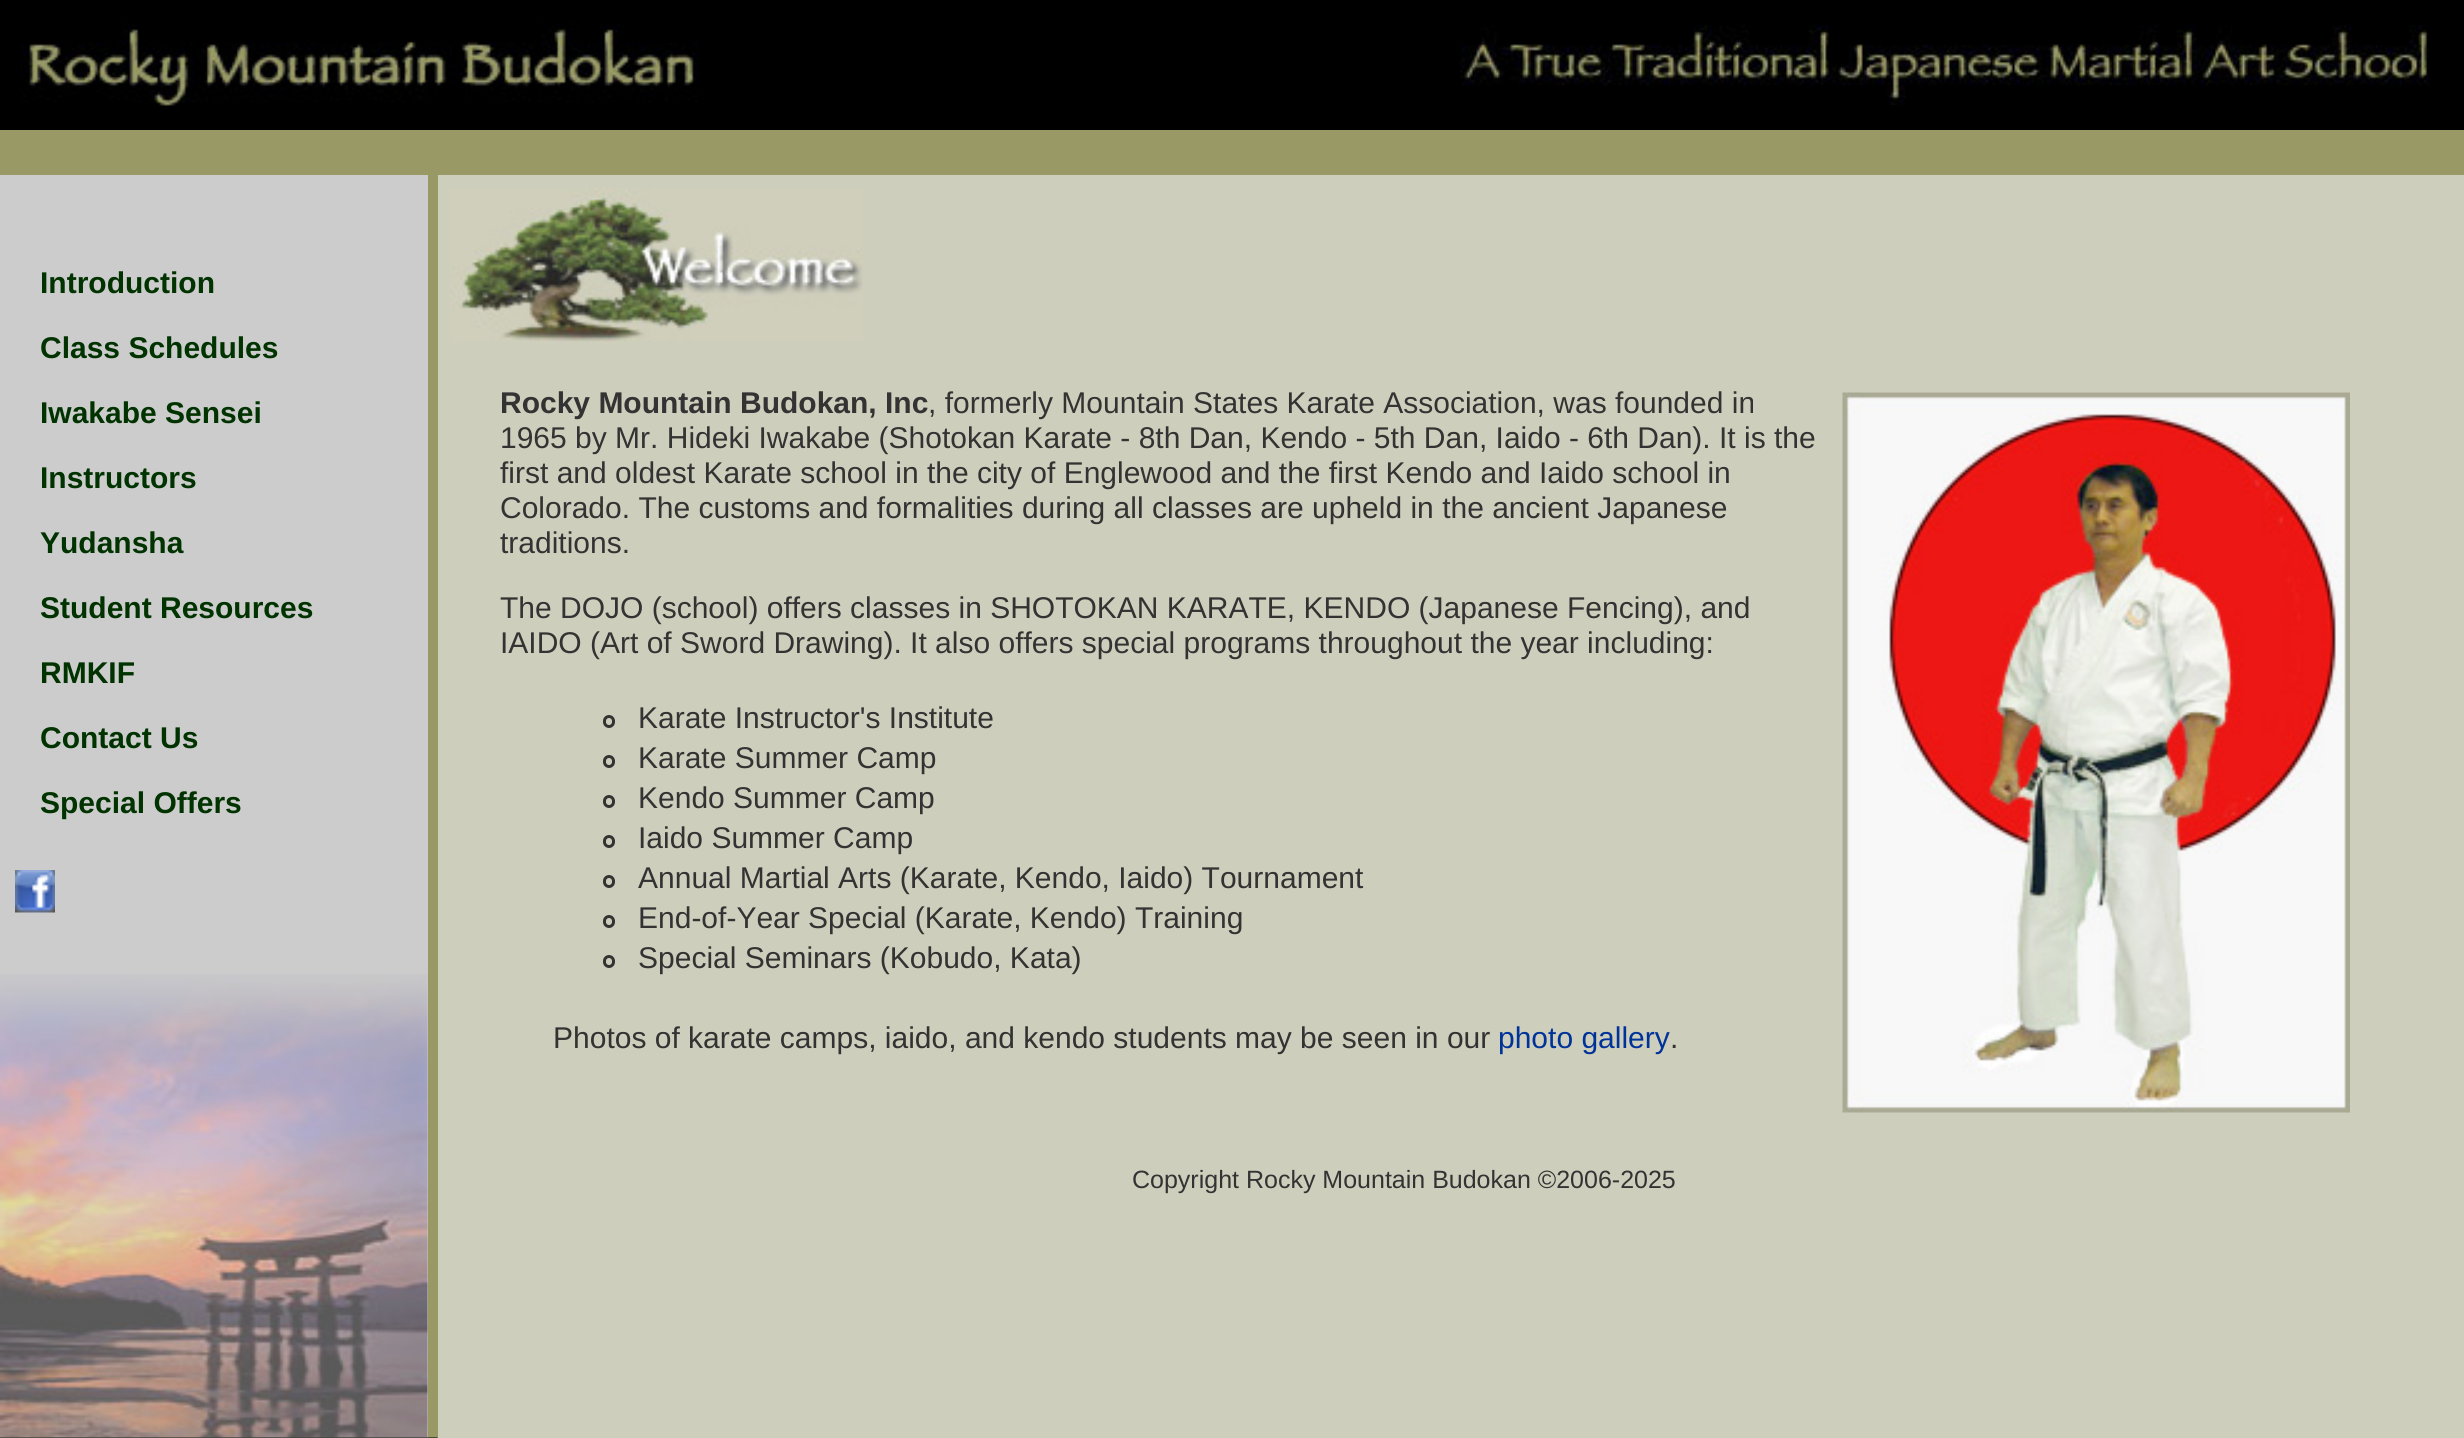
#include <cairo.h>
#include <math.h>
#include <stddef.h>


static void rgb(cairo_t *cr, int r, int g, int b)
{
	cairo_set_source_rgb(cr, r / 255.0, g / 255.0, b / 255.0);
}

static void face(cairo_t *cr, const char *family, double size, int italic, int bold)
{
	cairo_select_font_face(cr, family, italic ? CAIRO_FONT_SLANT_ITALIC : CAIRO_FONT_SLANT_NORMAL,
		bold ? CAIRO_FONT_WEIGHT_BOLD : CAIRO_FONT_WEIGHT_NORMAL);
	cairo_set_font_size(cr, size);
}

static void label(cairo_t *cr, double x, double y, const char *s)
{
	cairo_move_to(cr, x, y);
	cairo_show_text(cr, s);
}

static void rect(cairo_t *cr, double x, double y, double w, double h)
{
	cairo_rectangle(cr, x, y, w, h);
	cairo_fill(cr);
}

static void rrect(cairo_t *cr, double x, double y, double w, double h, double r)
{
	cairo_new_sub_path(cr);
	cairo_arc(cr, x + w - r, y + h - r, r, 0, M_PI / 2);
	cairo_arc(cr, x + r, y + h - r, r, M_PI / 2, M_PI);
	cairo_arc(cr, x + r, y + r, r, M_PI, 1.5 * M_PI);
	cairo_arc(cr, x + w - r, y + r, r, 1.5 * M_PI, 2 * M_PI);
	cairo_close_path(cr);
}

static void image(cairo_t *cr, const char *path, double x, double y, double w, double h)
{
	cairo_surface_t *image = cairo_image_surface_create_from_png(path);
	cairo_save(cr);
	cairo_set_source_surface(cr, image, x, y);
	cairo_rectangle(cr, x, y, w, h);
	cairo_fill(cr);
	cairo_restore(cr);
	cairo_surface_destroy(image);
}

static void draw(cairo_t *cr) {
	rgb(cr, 0, 0, 0);
	cairo_paint(cr);
	image(cr, "image0.png", 20, 22, 680, 88);
	image(cr, "image1.png", 1460, 25, 969, 80);
	rgb(cr, 153, 153, 102);
	rect(cr, 0, 130, 2464, 45);
	rgb(cr, 204, 204, 204);
	rect(cr, 0, 175, 428, 1263);
	face(cr, "Liberation Sans", 30, 0, 1);
	rgb(cr, 0, 51, 0);
	label(cr, 40, 293, "Introduction");
	label(cr, 40, 358, "Class Schedules");
	label(cr, 40, 423, "Iwakabe Sensei");
	label(cr, 40, 488, "Instructors");
	label(cr, 40, 553, "Yudansha");
	label(cr, 40, 618, "Student Resources");
	label(cr, 40, 683, "RMKIF");
	label(cr, 40, 748, "Contact Us");
	label(cr, 40, 813, "Special Offers");
	image(cr, "image2.png", 15, 870, 40, 43);
	rgb(cr, 153, 153, 102);
	rect(cr, 428, 175, 10, 1263);
	rgb(cr, 206, 206, 188);
	rect(cr, 438, 175, 1932, 1263);
	image(cr, "image3.png", 450, 188, 413, 154);
	rgb(cr, 51, 51, 51);
	label(cr, 500, 413, "Rocky Mountain Budokan, Inc");
	face(cr, "Liberation Sans", 30, 0, 0);
	label(cr, 928, 413, ", formerly Mountain States Karate Association, was founded in");
	image(cr, "image4.png", 1842, 392, 508, 721);
	label(cr, 500, 448, "1965 by Mr. Hideki Iwakabe (Shotokan Karate - 8th Dan, Kendo - 5th Dan, Iaido - 6th Dan). It is the");
	label(cr, 500, 483, "first and oldest Karate school in the city of Englewood and the first Kendo and Iaido school in");
	label(cr, 500, 518, "Colorado. The customs and formalities during all classes are upheld in the ancient Japanese");
	label(cr, 500, 553, "traditions.");
	label(cr, 500, 618, "The DOJO (school) offers classes in SHOTOKAN KARATE, KENDO (Japanese Fencing), and");
	label(cr, 500, 653, "IAIDO (Art of Sword Drawing). It also offers special programs throughout the year including:");
	rrect(cr, 604.5, 716.5, 9, 10, 4.5);
	cairo_set_line_width(cr, 3);
	cairo_stroke(cr);
	label(cr, 638, 728, "Karate Instructor's Institute");
	rrect(cr, 604.5, 756.5, 9, 10, 4.5);
	cairo_stroke(cr);
	label(cr, 638, 768, "Karate Summer Camp");
	rrect(cr, 604.5, 796.5, 9, 10, 4.5);
	cairo_stroke(cr);
	label(cr, 638, 808, "Kendo Summer Camp");
	rrect(cr, 604.5, 836.5, 9, 10, 4.5);
	cairo_stroke(cr);
	label(cr, 638, 848, "Iaido Summer Camp");
	rrect(cr, 604.5, 876.5, 9, 10, 4.5);
	cairo_stroke(cr);
	label(cr, 638, 888, "Annual Martial Arts (Karate, Kendo, Iaido) Tournament");
	rrect(cr, 604.5, 916.5, 9, 10, 4.5);
	cairo_stroke(cr);
	label(cr, 638, 928, "End-of-Year Special (Karate, Kendo) Training");
	rrect(cr, 604.5, 956.5, 9, 10, 4.5);
	cairo_stroke(cr);
	label(cr, 638, 968, "Special Seminars (Kobudo, Kata)");
	label(cr, 553, 1048, "Photos of karate camps, iaido, and kendo students may be seen in our");
	rgb(cr, 0, 51, 153);
	label(cr, 1498, 1048, "photo gallery");
	rgb(cr, 51, 51, 51);
	label(cr, 1670, 1048, ".");
	face(cr, "Liberation Sans", 25, 0, 0);
	label(cr, 1132, 1188, "Copyright Rocky Mountain Budokan ©2006-2025");
	rgb(cr, 206, 206, 188);
	rect(cr, 2370, 175, 94, 1263);
	image(cr, "image5.png", 0, 974, 428, 464);
	image(cr, "image6.png", 0, 1437, 438, 1);
}

int main(void) {
	cairo_surface_t *surface = cairo_image_surface_create(CAIRO_FORMAT_RGB24, 2464, 1438);
	cairo_t *cr = cairo_create(surface);
	cairo_font_options_t *options = cairo_font_options_create();
	cairo_font_options_set_hint_metrics(options, CAIRO_HINT_METRICS_OFF);
	cairo_font_options_set_hint_style(options, CAIRO_HINT_STYLE_NONE);
	cairo_set_font_options(cr, options);
	cairo_set_miter_limit(cr, 4);
	draw(cr);
	cairo_surface_write_to_png(surface, "render.png");
	cairo_font_options_destroy(options);
	cairo_destroy(cr);
	cairo_surface_destroy(surface);
	return 0;
}
